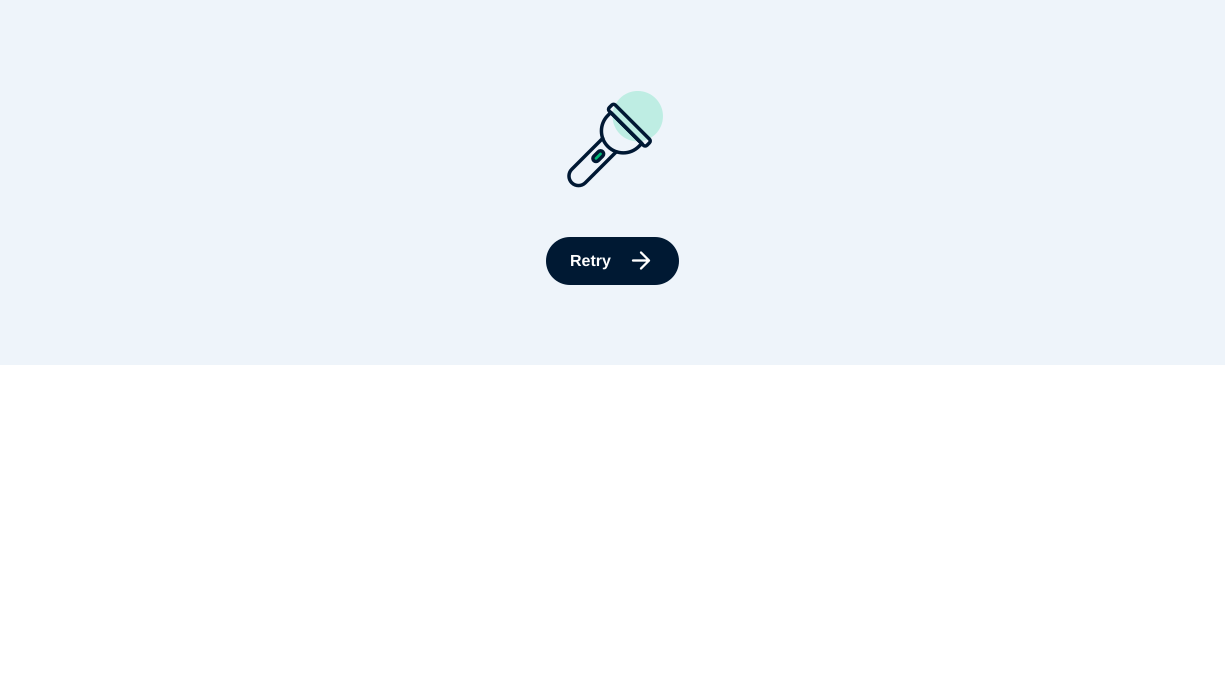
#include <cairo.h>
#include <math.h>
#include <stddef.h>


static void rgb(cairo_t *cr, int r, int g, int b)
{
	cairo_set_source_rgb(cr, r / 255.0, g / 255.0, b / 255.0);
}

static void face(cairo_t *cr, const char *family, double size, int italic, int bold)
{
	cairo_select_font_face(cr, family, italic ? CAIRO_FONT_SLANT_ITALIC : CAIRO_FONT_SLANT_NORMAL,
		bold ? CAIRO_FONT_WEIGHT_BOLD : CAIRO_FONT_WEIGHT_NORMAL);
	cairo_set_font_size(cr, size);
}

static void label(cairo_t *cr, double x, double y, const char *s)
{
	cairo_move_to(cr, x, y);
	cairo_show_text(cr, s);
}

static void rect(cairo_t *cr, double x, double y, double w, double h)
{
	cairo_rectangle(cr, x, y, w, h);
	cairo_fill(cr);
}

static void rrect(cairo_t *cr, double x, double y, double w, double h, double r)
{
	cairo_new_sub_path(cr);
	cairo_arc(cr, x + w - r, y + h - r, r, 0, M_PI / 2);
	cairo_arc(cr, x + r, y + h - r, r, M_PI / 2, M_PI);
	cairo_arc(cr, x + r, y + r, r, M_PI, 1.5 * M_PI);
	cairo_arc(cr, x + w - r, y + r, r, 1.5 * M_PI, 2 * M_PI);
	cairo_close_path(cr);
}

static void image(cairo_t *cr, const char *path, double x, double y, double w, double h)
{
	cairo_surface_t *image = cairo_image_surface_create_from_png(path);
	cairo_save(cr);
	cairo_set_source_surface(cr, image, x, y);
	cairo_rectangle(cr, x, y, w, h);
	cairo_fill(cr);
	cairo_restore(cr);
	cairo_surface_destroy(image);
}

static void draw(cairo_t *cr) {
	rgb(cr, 255, 255, 255);
	cairo_paint(cr);
	rgb(cr, 238, 244, 250);
	rect(cr, 0, 0, 1225, 365);
	image(cr, "image0.png", 567, 91, 96, 97);
	rgb(cr, 0, 25, 51);
	rrect(cr, 546, 237, 133, 48, 24);
	cairo_fill(cr);
	face(cr, "Liberation Sans", 16, 0, 1);
	rgb(cr, 255, 255, 255);
	label(cr, 570, 266, "Retry");
	cairo_new_path(cr);
	cairo_move_to(cr, 633, 260.5);
	cairo_line_to(cr, 649, 260.5);
	cairo_move_to(cr, 641, 252.5);
	cairo_line_to(cr, 649, 260.5);
	cairo_line_to(cr, 641, 268.5);
	cairo_set_line_width(cr, 2.3);
	cairo_set_line_cap(cr, CAIRO_LINE_CAP_ROUND);
	cairo_set_line_join(cr, CAIRO_LINE_JOIN_ROUND);
	cairo_stroke(cr);
}

int main(void) {
	cairo_surface_t *surface = cairo_image_surface_create(CAIRO_FORMAT_RGB24, 1225, 681);
	cairo_t *cr = cairo_create(surface);
	cairo_font_options_t *options = cairo_font_options_create();
	cairo_font_options_set_hint_metrics(options, CAIRO_HINT_METRICS_OFF);
	cairo_font_options_set_hint_style(options, CAIRO_HINT_STYLE_NONE);
	cairo_set_font_options(cr, options);
	cairo_set_miter_limit(cr, 4);
	draw(cr);
	cairo_surface_write_to_png(surface, "render.png");
	cairo_font_options_destroy(options);
	cairo_destroy(cr);
	cairo_surface_destroy(surface);
	return 0;
}
